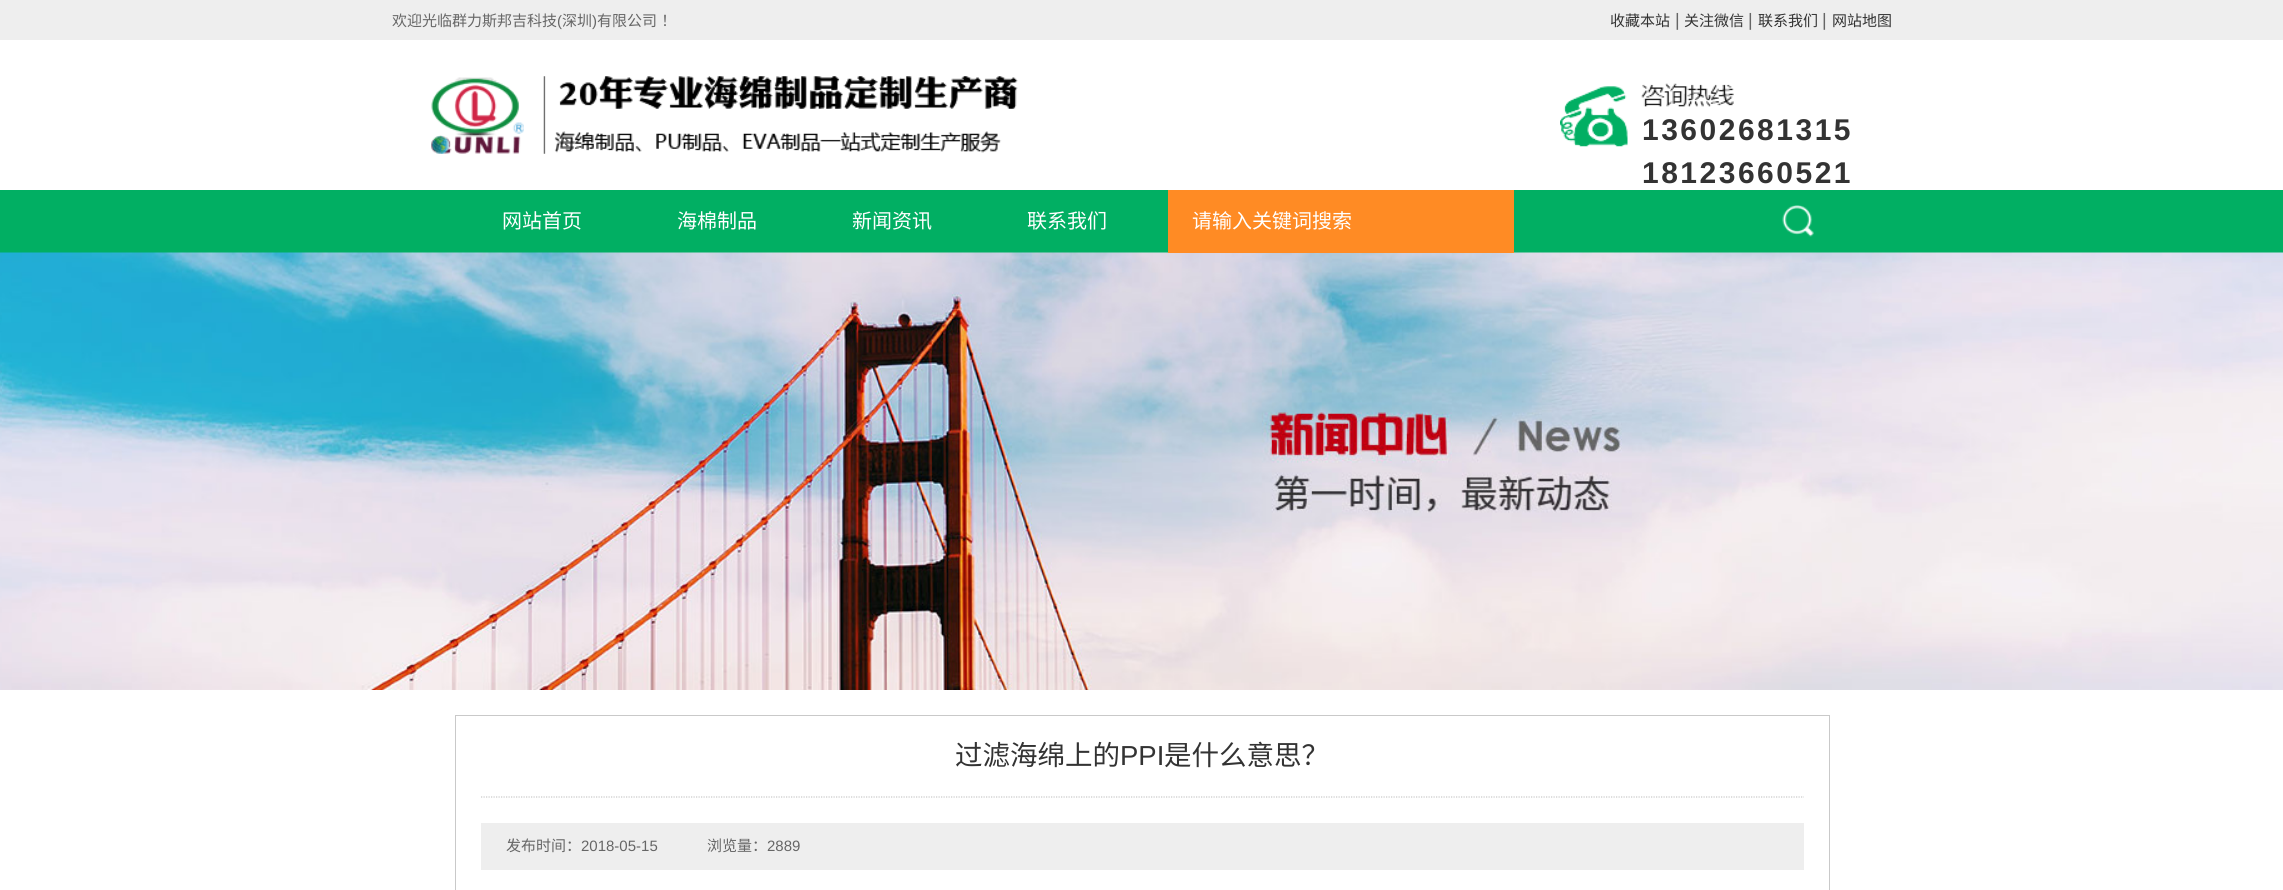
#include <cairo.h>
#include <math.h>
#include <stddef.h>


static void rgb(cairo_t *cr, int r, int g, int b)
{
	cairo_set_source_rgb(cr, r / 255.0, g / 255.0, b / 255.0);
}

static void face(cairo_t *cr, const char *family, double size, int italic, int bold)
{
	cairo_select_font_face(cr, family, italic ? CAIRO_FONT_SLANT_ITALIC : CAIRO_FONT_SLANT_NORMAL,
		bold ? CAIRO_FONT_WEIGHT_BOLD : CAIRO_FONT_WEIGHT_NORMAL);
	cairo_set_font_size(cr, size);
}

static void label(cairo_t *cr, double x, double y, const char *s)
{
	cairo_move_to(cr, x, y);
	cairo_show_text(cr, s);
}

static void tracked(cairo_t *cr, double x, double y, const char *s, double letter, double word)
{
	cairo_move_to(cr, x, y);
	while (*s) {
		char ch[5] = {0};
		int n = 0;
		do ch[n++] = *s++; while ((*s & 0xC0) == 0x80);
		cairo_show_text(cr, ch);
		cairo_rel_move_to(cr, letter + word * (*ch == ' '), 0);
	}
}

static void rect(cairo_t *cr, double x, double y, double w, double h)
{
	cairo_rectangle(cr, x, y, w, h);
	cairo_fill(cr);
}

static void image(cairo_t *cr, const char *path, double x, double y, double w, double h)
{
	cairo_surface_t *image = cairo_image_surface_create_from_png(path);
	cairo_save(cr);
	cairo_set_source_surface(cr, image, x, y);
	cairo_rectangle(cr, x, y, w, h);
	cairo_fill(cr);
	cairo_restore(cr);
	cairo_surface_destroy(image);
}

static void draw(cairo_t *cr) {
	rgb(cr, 255, 255, 255);
	cairo_paint(cr);
	rgb(cr, 238, 238, 238);
	rect(cr, 0, 0, 2283, 40);
	face(cr, "Noto Sans CJK SC", 15, 0, 0);
	rgb(cr, 102, 102, 102);
	label(cr, 392, 26, "欢迎光临群力斯邦吉科技");
	face(cr, "Liberation Sans", 15, 0, 0);
	label(cr, 557, 26, "(");
	face(cr, "Noto Sans CJK SC", 15, 0, 0);
	label(cr, 562, 26, "深圳");
	face(cr, "Liberation Sans", 15, 0, 0);
	label(cr, 592, 26, ")");
	face(cr, "Noto Sans CJK SC", 15, 0, 0);
	tracked(cr, 597, 26, "有限公司 ！", 0, 1);
	rgb(cr, 51, 51, 51);
	label(cr, 1610, 26, "收藏本站");
	face(cr, "Liberation Sans", 18, 0, 0);
	rgb(cr, 102, 102, 102);
	label(cr, 1675, 26, "|");
	face(cr, "Noto Sans CJK SC", 15, 0, 0);
	rgb(cr, 51, 51, 51);
	label(cr, 1684, 26, "关注微信");
	face(cr, "Liberation Sans", 18, 0, 0);
	rgb(cr, 102, 102, 102);
	label(cr, 1748, 26, "|");
	face(cr, "Noto Sans CJK SC", 15, 0, 0);
	rgb(cr, 51, 51, 51);
	label(cr, 1758, 26, "联系我们");
	face(cr, "Liberation Sans", 18, 0, 0);
	rgb(cr, 102, 102, 102);
	label(cr, 1822, 26, "|");
	face(cr, "Noto Sans CJK SC", 15, 0, 0);
	rgb(cr, 51, 51, 51);
	label(cr, 1832, 26, "网站地图");
	image(cr, "image0.png", 431, 76, 587, 78);
	image(cr, "image1.png", 1560, 83, 174, 64);
	face(cr, "Liberation Sans", 30, 0, 1);
	tracked(cr, 1642, 140, "13602681315", 2.5, 0);
	tracked(cr, 1642, 183, "18123660521", 2.5, 0);
	rgb(cr, 1, 175, 99);
	rect(cr, 0, 190, 2283, 63);
	face(cr, "Noto Sans CJK SC", 20, 0, 0);
	rgb(cr, 255, 255, 255);
	label(cr, 502, 228, "网站首页");
	label(cr, 677, 228, "海棉制品");
	label(cr, 852, 228, "新闻资讯");
	label(cr, 1027, 228, "联系我们");
	image(cr, "image3.png", 0, 252, 2283, 438);
	rgb(cr, 255, 139, 36);
	rect(cr, 1168, 190, 346, 63);
	rgb(cr, 255, 255, 255);
	label(cr, 1192, 228, "请输入关键词搜索");
	image(cr, "image2.png", 1782, 205, 32, 32);
	cairo_rectangle(cr, 455.5, 715.5, 1374, 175);
	rgb(cr, 201, 201, 201);
	cairo_set_line_width(cr, 1);
	cairo_stroke(cr);
	cairo_new_path(cr);
	cairo_move_to(cr, 481, 797);
	cairo_line_to(cr, 1804, 797);
	cairo_set_line_width(cr, 1.2);
	cairo_set_dash(cr, (double[]){1.25, 1.25}, 2, 0);
	cairo_stroke(cr);
	face(cr, "Noto Sans CJK SC", 27.5, 0, 0);
	rgb(cr, 51, 51, 51);
	label(cr, 955, 765, "过滤海绵上的");
	face(cr, "Liberation Sans", 27.5, 0, 0);
	label(cr, 1120, 765, "PPI");
	face(cr, "Noto Sans CJK SC", 27.5, 0, 0);
	label(cr, 1164, 765, "是什么意思？");
	rgb(cr, 238, 238, 238);
	rect(cr, 481, 823, 1323, 47);
	face(cr, "Noto Sans CJK SC", 15, 0, 0);
	rgb(cr, 102, 102, 102);
	label(cr, 506, 851, "发布时间：");
	face(cr, "Liberation Sans", 15, 0, 0);
	label(cr, 581, 851, "2018-05-15");
	face(cr, "Noto Sans CJK SC", 15, 0, 0);
	label(cr, 707, 851, "浏览量：");
	face(cr, "Liberation Sans", 15, 0, 0);
	label(cr, 767, 851, "2889");
}

int main(void) {
	cairo_surface_t *surface = cairo_image_surface_create(CAIRO_FORMAT_RGB24, 2283, 890);
	cairo_t *cr = cairo_create(surface);
	cairo_font_options_t *options = cairo_font_options_create();
	cairo_font_options_set_hint_metrics(options, CAIRO_HINT_METRICS_OFF);
	cairo_font_options_set_hint_style(options, CAIRO_HINT_STYLE_NONE);
	cairo_set_font_options(cr, options);
	cairo_set_miter_limit(cr, 4);
	draw(cr);
	cairo_surface_write_to_png(surface, "render.png");
	cairo_font_options_destroy(options);
	cairo_destroy(cr);
	cairo_surface_destroy(surface);
	return 0;
}
